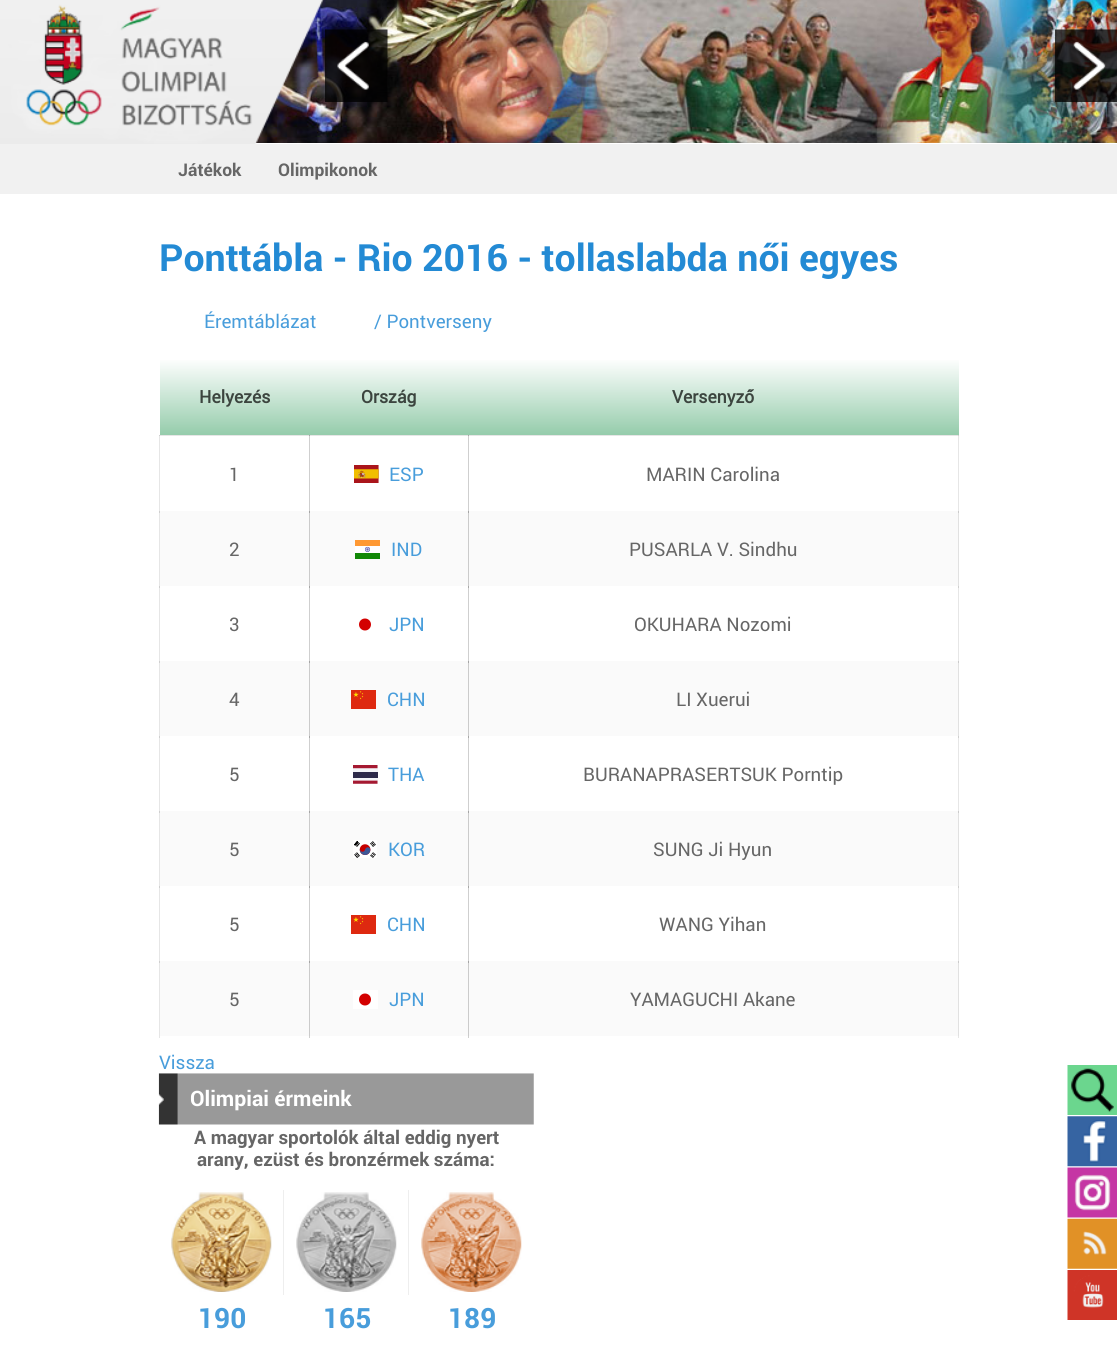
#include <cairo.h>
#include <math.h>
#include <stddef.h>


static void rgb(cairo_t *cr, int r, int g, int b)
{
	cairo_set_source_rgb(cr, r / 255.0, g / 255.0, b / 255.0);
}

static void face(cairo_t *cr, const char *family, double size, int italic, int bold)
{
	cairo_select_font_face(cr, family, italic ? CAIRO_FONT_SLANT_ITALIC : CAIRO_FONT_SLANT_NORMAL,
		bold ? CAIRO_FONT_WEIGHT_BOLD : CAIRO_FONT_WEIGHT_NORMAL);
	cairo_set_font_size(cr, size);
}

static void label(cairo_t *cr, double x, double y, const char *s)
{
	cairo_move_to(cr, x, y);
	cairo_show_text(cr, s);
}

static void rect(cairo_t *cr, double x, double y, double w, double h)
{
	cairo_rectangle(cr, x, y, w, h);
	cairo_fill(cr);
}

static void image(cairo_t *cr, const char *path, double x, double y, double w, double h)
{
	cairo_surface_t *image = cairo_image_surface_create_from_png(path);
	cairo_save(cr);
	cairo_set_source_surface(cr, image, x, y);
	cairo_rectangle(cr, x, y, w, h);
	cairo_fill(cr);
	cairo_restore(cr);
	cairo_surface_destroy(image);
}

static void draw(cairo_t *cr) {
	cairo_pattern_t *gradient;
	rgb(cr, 255, 255, 255);
	cairo_paint(cr);
	rgb(cr, 230, 230, 230);
	rect(cr, 159, 435, 800, 1);
	rect(cr, 159, 435, 1, 603);
	rgb(cr, 207, 207, 207);
	rect(cr, 159, 435, 1, 1);
	rect(cr, 309, 435, 1, 78);
	rgb(cr, 167, 167, 167);
	rect(cr, 309, 435, 1, 1);
	rgb(cr, 207, 207, 207);
	rect(cr, 468, 435, 1, 78);
	rgb(cr, 167, 167, 167);
	rect(cr, 468, 435, 1, 1);
	rgb(cr, 230, 230, 230);
	rect(cr, 958, 435, 1, 78);
	rgb(cr, 207, 207, 207);
	rect(cr, 958, 435, 1, 1);
	rect(cr, 159, 511, 1, 2);
	rect(cr, 159, 586, 1, 2);
	rect(cr, 309, 586, 1, 77);
	rgb(cr, 167, 167, 167);
	rect(cr, 309, 586, 1, 2);
	rgb(cr, 207, 207, 207);
	rect(cr, 468, 586, 1, 77);
	rgb(cr, 167, 167, 167);
	rect(cr, 468, 586, 1, 2);
	rgb(cr, 230, 230, 230);
	rect(cr, 958, 586, 1, 77);
	rgb(cr, 207, 207, 207);
	rect(cr, 958, 586, 1, 2);
	rect(cr, 159, 661, 1, 2);
	rect(cr, 159, 736, 1, 2);
	rect(cr, 309, 736, 1, 77);
	rgb(cr, 167, 167, 167);
	rect(cr, 309, 736, 1, 2);
	rgb(cr, 207, 207, 207);
	rect(cr, 468, 736, 1, 77);
	rgb(cr, 167, 167, 167);
	rect(cr, 468, 736, 1, 2);
	rgb(cr, 230, 230, 230);
	rect(cr, 958, 736, 1, 77);
	rgb(cr, 207, 207, 207);
	rect(cr, 958, 736, 1, 2);
	rect(cr, 159, 811, 1, 2);
	rect(cr, 159, 886, 1, 2);
	rect(cr, 309, 886, 1, 77);
	rgb(cr, 167, 167, 167);
	rect(cr, 309, 886, 1, 2);
	rgb(cr, 207, 207, 207);
	rect(cr, 468, 886, 1, 77);
	rgb(cr, 167, 167, 167);
	rect(cr, 468, 886, 1, 2);
	rgb(cr, 230, 230, 230);
	rect(cr, 958, 886, 1, 77);
	rgb(cr, 207, 207, 207);
	rect(cr, 958, 886, 1, 2);
	rect(cr, 309, 1036, 1, 2);
	rect(cr, 468, 1036, 1, 2);
	rgb(cr, 230, 230, 230);
	rect(cr, 958, 1036, 1, 2);
	image(cr, "image1.png", 255, 0, 862, 143);
	image(cr, "image0.png", 0, 0, 324, 144);
	image(cr, "image2.png", 325, 29, 63, 73);
	image(cr, "image3.png", 1055, 29, 62, 73);
	rgb(cr, 241, 241, 241);
	rect(cr, 0, 144, 1117, 50);
	face(cr, "Roboto", 17.5, 0, 1);
	rgb(cr, 102, 102, 102);
	label(cr, 178, 176, "Játékok");
	label(cr, 278, 176, "Olimpikonok");
	face(cr, "Roboto", 37.5, 0, 1);
	rgb(cr, 35, 138, 212);
	label(cr, 159, 271, "Ponttábla - Rio 2016 - tollaslabda női egyes");
	face(cr, "Roboto", 18.75, 0, 0);
	rgb(cr, 72, 157, 219);
	label(cr, 204, 328, "Éremtáblázat");
	label(cr, 374, 328, "/ Pontverseny");
	gradient = cairo_pattern_create_linear(235, 358, 235, 435);
	cairo_pattern_add_color_stop_rgba(gradient, 0, 1, 1, 1, 1);
	cairo_pattern_add_color_stop_rgba(gradient, 1, 0.584, 0.8, 0.671, 1);
	cairo_set_source(cr, gradient);
	cairo_pattern_destroy(gradient);
	rect(cr, 160, 360, 150, 75);
	face(cr, "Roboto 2", 17.5, 0, 1);
	rgb(cr, 60, 69, 63);
	label(cr, 199, 403, "Helyezés");
	gradient = cairo_pattern_create_linear(389, 358, 389, 435);
	cairo_pattern_add_color_stop_rgba(gradient, 0, 1, 1, 1, 1);
	cairo_pattern_add_color_stop_rgba(gradient, 1, 0.584, 0.8, 0.671, 1);
	cairo_set_source(cr, gradient);
	cairo_pattern_destroy(gradient);
	rect(cr, 310, 360, 158, 75);
	rgb(cr, 60, 69, 63);
	label(cr, 361, 403, "Ország");
	gradient = cairo_pattern_create_linear(713, 358, 713, 435);
	cairo_pattern_add_color_stop_rgba(gradient, 0, 1, 1, 1, 1);
	cairo_pattern_add_color_stop_rgba(gradient, 1, 0.584, 0.8, 0.671, 1);
	cairo_set_source(cr, gradient);
	cairo_pattern_destroy(gradient);
	rect(cr, 468, 360, 491, 75);
	rgb(cr, 60, 69, 63);
	label(cr, 672, 403, "Versenyző");
	face(cr, "Roboto", 18.75, 0, 0);
	rgb(cr, 102, 102, 102);
	label(cr, 229, 481, "1");
	image(cr, "image4.png", 354, 465, 25, 18);
	rgb(cr, 72, 157, 219);
	label(cr, 389, 481, "ESP");
	rgb(cr, 102, 102, 102);
	label(cr, 646, 481, "MARIN Carolina");
	rgb(cr, 250, 250, 250);
	rect(cr, 160, 511, 798, 75);
	rgb(cr, 203, 203, 203);
	rect(cr, 309, 511, 1, 75);
	rgb(cr, 165, 165, 165);
	rect(cr, 309, 511, 1, 2);
	rgb(cr, 203, 203, 203);
	rect(cr, 468, 511, 1, 75);
	rgb(cr, 165, 165, 165);
	rect(cr, 468, 511, 1, 2);
	rgb(cr, 225, 225, 225);
	rect(cr, 958, 511, 1, 75);
	rgb(cr, 203, 203, 203);
	rect(cr, 958, 511, 1, 2);
	rgb(cr, 102, 102, 102);
	label(cr, 229, 556, "2");
	image(cr, "image5.png", 355, 540, 25, 19);
	rgb(cr, 72, 157, 219);
	label(cr, 391, 556, "IND");
	rgb(cr, 102, 102, 102);
	label(cr, 629, 556, "PUSARLA V. Sindhu");
	label(cr, 229, 631, "3");
	rgb(cr, 211, 0, 0);
	cairo_new_path(cr);
	cairo_arc(cr, 365, 624.5, 6, 0, 2 * M_PI);
	cairo_fill(cr);
	rgb(cr, 72, 157, 219);
	label(cr, 389, 631, "JPN");
	rgb(cr, 102, 102, 102);
	label(cr, 634, 631, "OKUHARA Nozomi");
	rgb(cr, 250, 250, 250);
	rect(cr, 160, 661, 798, 75);
	rgb(cr, 203, 203, 203);
	rect(cr, 309, 661, 1, 75);
	rgb(cr, 165, 165, 165);
	rect(cr, 309, 661, 1, 2);
	rgb(cr, 203, 203, 203);
	rect(cr, 468, 661, 1, 75);
	rgb(cr, 165, 165, 165);
	rect(cr, 468, 661, 1, 2);
	rgb(cr, 225, 225, 225);
	rect(cr, 958, 661, 1, 75);
	rgb(cr, 203, 203, 203);
	rect(cr, 958, 661, 1, 2);
	rgb(cr, 102, 102, 102);
	label(cr, 229, 706, "4");
	image(cr, "image6.png", 351, 690, 25, 19);
	rgb(cr, 72, 157, 219);
	label(cr, 387, 706, "CHN");
	rgb(cr, 102, 102, 102);
	label(cr, 676, 706, "LI Xuerui");
	label(cr, 229, 781, "5");
	image(cr, "image7.png", 353, 765, 25, 19);
	rgb(cr, 72, 157, 219);
	label(cr, 388, 781, "THA");
	rgb(cr, 102, 102, 102);
	label(cr, 583, 781, "BURANAPRASERTSUK Porntip");
	rgb(cr, 250, 250, 250);
	rect(cr, 160, 811, 798, 75);
	rgb(cr, 203, 203, 203);
	rect(cr, 309, 811, 1, 75);
	rgb(cr, 165, 165, 165);
	rect(cr, 309, 811, 1, 2);
	rgb(cr, 203, 203, 203);
	rect(cr, 468, 811, 1, 75);
	rgb(cr, 165, 165, 165);
	rect(cr, 468, 811, 1, 2);
	rgb(cr, 225, 225, 225);
	rect(cr, 958, 811, 1, 75);
	rgb(cr, 203, 203, 203);
	rect(cr, 958, 811, 1, 2);
	rgb(cr, 102, 102, 102);
	label(cr, 229, 856, "5");
	image(cr, "image8.png", 353, 840, 24, 18);
	rgb(cr, 72, 157, 219);
	label(cr, 388, 856, "KOR");
	rgb(cr, 102, 102, 102);
	label(cr, 653, 856, "SUNG Ji Hyun");
	label(cr, 229, 931, "5");
	image(cr, "image6.png", 351, 915, 25, 19);
	rgb(cr, 72, 157, 219);
	label(cr, 387, 931, "CHN");
	rgb(cr, 102, 102, 102);
	label(cr, 659, 931, "WANG Yihan");
	rgb(cr, 250, 250, 250);
	rect(cr, 160, 961, 798, 75);
	rgb(cr, 203, 203, 203);
	rect(cr, 309, 961, 1, 75);
	rgb(cr, 165, 165, 165);
	rect(cr, 309, 961, 1, 2);
	rgb(cr, 203, 203, 203);
	rect(cr, 468, 961, 1, 75);
	rgb(cr, 165, 165, 165);
	rect(cr, 468, 961, 1, 2);
	rgb(cr, 225, 225, 225);
	rect(cr, 958, 961, 1, 75);
	rgb(cr, 203, 203, 203);
	rect(cr, 958, 961, 1, 2);
	rgb(cr, 207, 207, 207);
	rect(cr, 159, 961, 1, 2);
	rgb(cr, 102, 102, 102);
	label(cr, 229, 1006, "5");
	rgb(cr, 255, 255, 255);
	rect(cr, 353, 990, 25, 19);
	rgb(cr, 211, 0, 0);
	cairo_new_path(cr);
	cairo_arc(cr, 365, 999.5, 6, 0, 2 * M_PI);
	cairo_fill(cr);
	rgb(cr, 72, 157, 219);
	label(cr, 389, 1006, "JPN");
	rgb(cr, 102, 102, 102);
	label(cr, 630, 1006, "YAMAGUCHI Akane");
	rgb(cr, 72, 157, 219);
	label(cr, 159, 1069, "Vissza");
	image(cr, "image9.png", 158, 1073, 376, 52);
	face(cr, "Roboto", 21.25, 0, 1);
	rgb(cr, 255, 255, 255);
	label(cr, 190, 1106, "Olimpiai érmeink");
	face(cr, "Roboto", 18.75, 0, 1);
	rgb(cr, 102, 102, 102);
	label(cr, 194, 1144, "A magyar sportolók által eddig nyert");
	label(cr, 197, 1166, "arany, ezüst és bronzérmek száma:");
	rgb(cr, 238, 238, 238);
	rect(cr, 283, 1190, 1, 105);
	image(cr, "image10.png", 171, 1192, 101, 100);
	rect(cr, 408, 1190, 1, 105);
	image(cr, "image11.png", 296, 1192, 101, 100);
	image(cr, "image12.png", 421, 1192, 101, 100);
	face(cr, "Roboto", 28, 0, 1);
	rgb(cr, 72, 157, 219);
	label(cr, 198, 1328, "190");
	label(cr, 323, 1328, "165");
	label(cr, 448, 1328, "189");
	image(cr, "image13.png", 1067, 1065, 50, 50);
	image(cr, "image14.png", 1067, 1116, 50, 51);
	image(cr, "image15.png", 1067, 1167, 50, 51);
	image(cr, "image16.png", 1067, 1218, 50, 51);
	image(cr, "image17.png", 1067, 1270, 50, 50);
}

int main(void) {
	cairo_surface_t *surface = cairo_image_surface_create(CAIRO_FORMAT_RGB24, 1117, 1359);
	cairo_t *cr = cairo_create(surface);
	cairo_font_options_t *options = cairo_font_options_create();
	cairo_font_options_set_hint_metrics(options, CAIRO_HINT_METRICS_OFF);
	cairo_font_options_set_hint_style(options, CAIRO_HINT_STYLE_NONE);
	cairo_set_font_options(cr, options);
	cairo_set_miter_limit(cr, 4);
	draw(cr);
	cairo_surface_write_to_png(surface, "render.png");
	cairo_font_options_destroy(options);
	cairo_destroy(cr);
	cairo_surface_destroy(surface);
	return 0;
}
